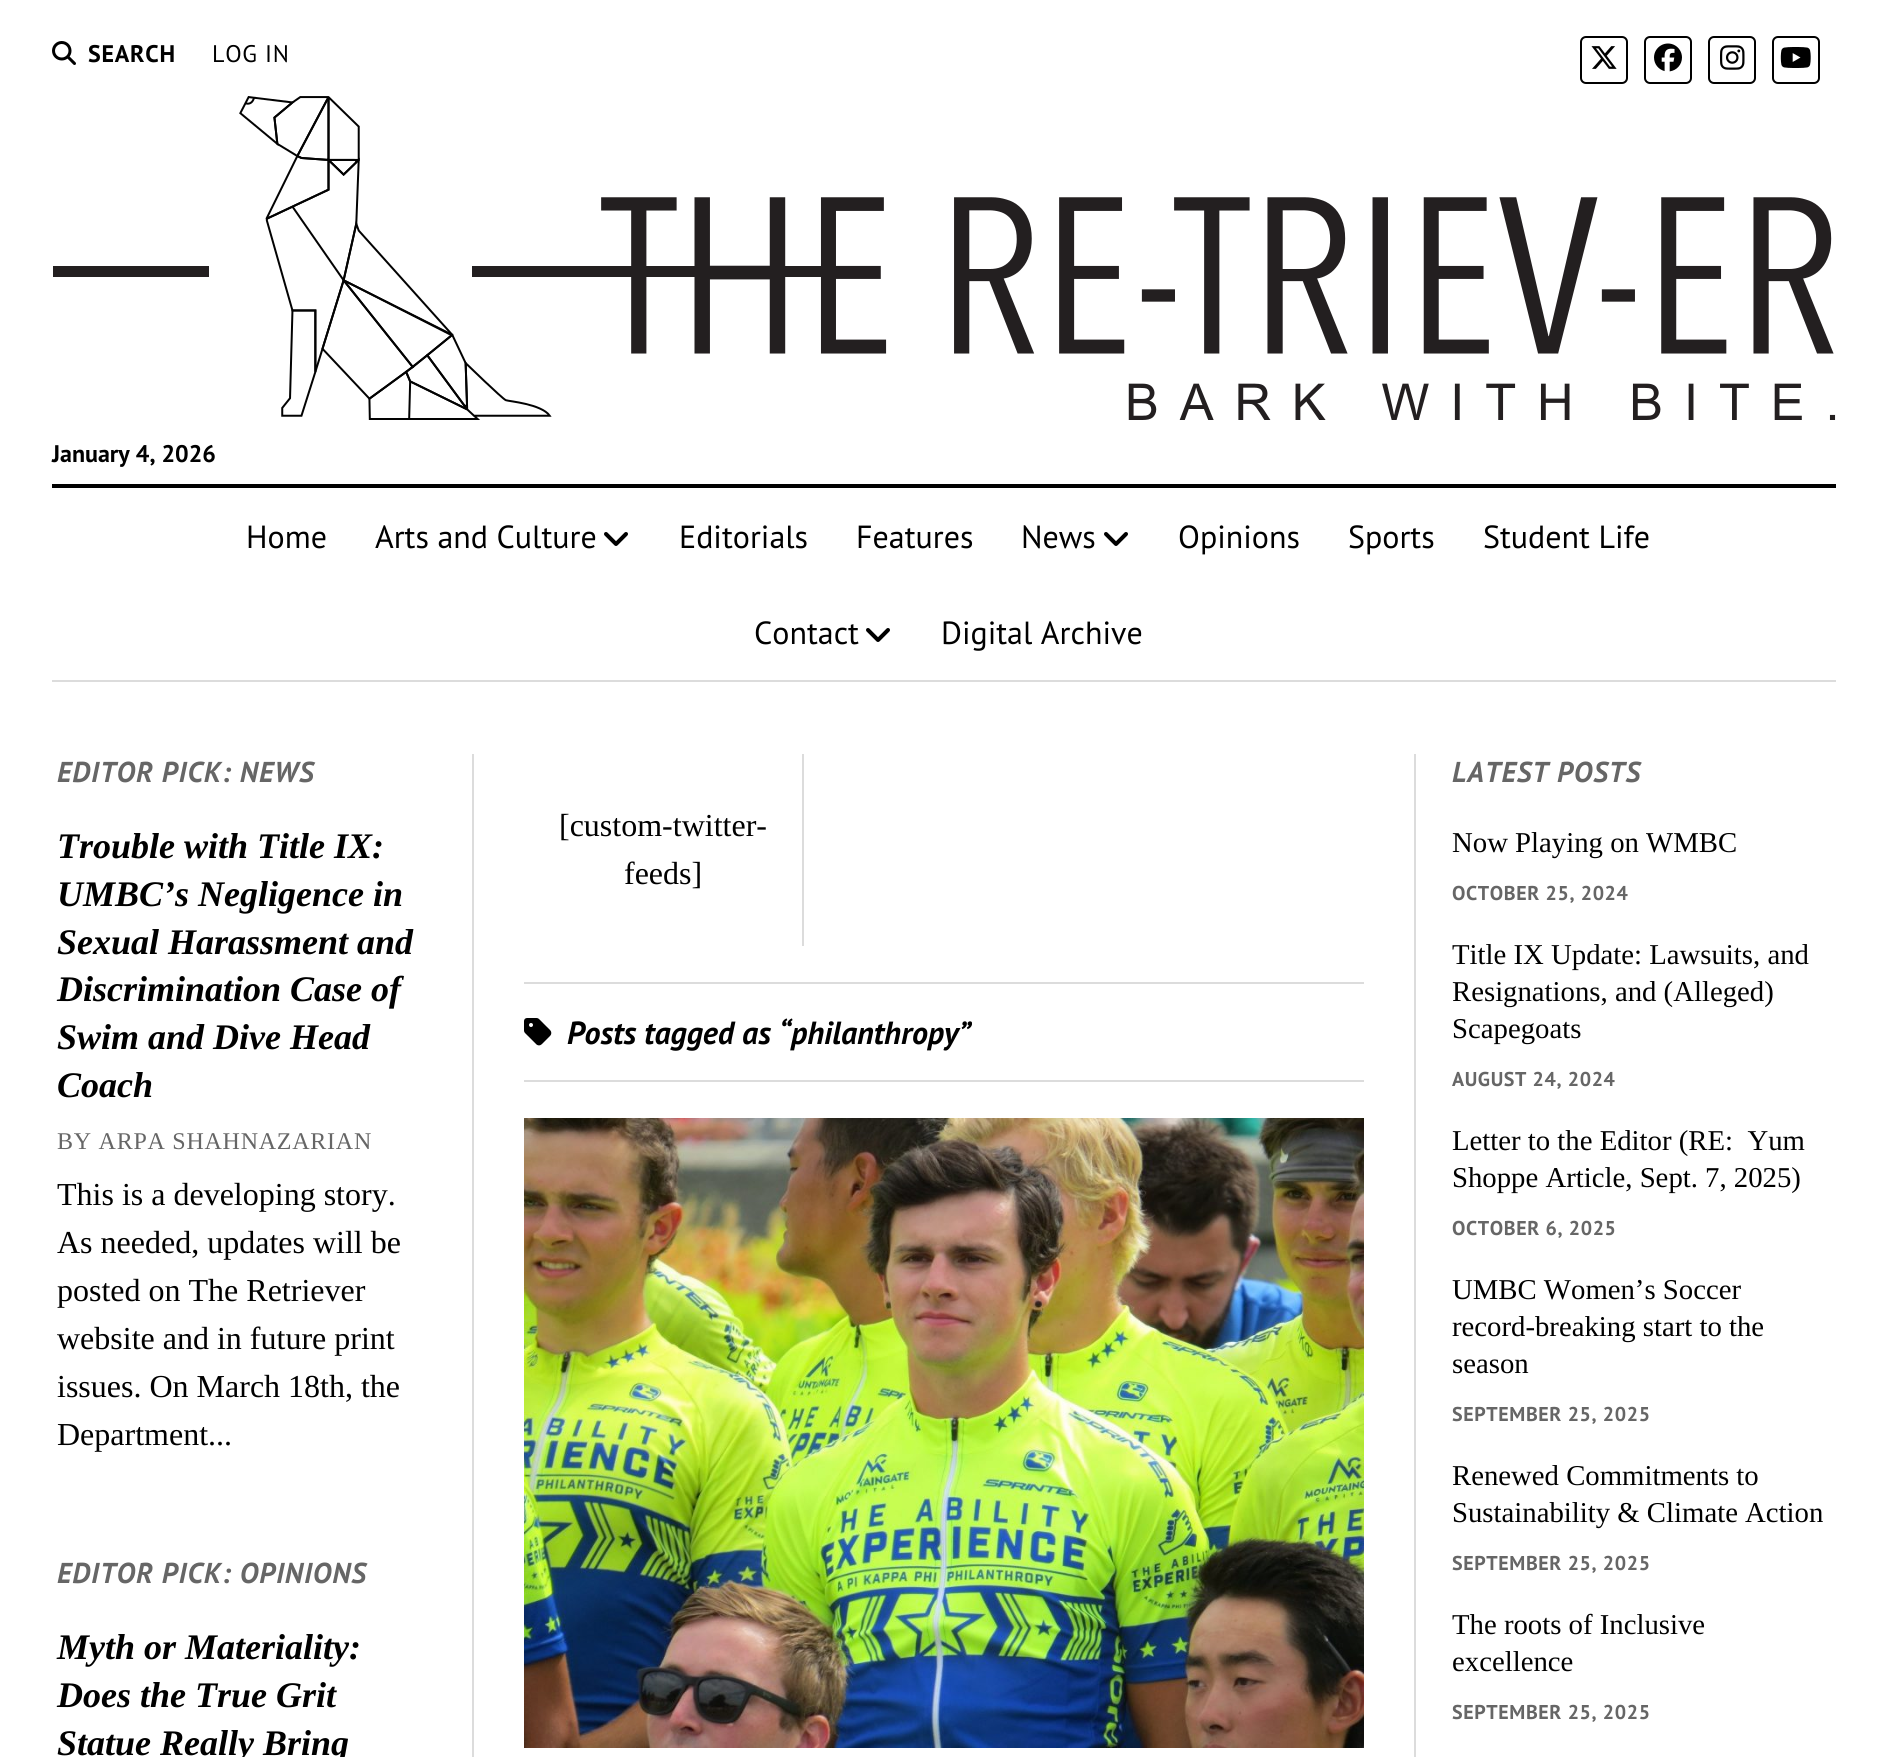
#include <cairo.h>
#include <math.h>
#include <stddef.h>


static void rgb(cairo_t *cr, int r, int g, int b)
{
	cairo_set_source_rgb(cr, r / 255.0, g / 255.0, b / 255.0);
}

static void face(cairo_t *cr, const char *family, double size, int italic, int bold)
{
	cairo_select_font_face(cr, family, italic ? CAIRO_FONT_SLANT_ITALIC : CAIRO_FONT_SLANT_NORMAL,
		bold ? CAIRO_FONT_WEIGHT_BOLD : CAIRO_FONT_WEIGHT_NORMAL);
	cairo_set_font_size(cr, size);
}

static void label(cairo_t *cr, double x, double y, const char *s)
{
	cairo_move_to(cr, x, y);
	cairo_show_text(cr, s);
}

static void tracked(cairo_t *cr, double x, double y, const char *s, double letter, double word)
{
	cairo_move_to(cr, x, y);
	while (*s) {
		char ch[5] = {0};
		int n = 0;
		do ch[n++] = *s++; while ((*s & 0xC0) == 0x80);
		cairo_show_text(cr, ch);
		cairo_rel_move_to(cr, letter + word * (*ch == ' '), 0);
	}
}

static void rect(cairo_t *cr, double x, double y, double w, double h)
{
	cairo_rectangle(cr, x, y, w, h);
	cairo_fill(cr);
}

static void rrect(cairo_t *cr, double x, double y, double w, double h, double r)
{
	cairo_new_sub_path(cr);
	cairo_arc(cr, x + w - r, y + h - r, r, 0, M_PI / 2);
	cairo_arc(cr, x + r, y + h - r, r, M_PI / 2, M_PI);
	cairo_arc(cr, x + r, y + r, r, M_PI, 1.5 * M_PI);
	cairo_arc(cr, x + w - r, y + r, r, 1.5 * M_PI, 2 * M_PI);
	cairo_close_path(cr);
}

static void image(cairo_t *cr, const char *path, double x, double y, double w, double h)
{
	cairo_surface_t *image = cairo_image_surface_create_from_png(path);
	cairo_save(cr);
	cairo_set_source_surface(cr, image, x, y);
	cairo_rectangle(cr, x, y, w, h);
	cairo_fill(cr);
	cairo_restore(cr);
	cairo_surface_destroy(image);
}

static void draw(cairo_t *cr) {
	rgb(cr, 255, 255, 255);
	cairo_paint(cr);
	image(cr, "image0.png", 52, 41, 24, 24);
	face(cr, "PT Sans", 24, 0, 1);
	rgb(cr, 0, 0, 0);
	tracked(cr, 88, 62, "SEARCH", 0.75, 0);
	face(cr, "PT Sans", 24, 0, 0);
	tracked(cr, 212, 62, "LOG IN", 0.75, 0);
	rrect(cr, 1581, 37, 46, 46, 5);
	cairo_stroke(cr);
	image(cr, "image1.png", 1591, 46, 26, 23);
	rrect(cr, 1645, 37, 46, 46, 5);
	cairo_stroke(cr);
	image(cr, "image2.png", 1654, 43, 28, 29);
	rrect(cr, 1709, 37, 46, 46, 5);
	cairo_stroke(cr);
	image(cr, "image3.png", 1720, 45, 25, 25);
	rrect(cr, 1773, 37, 46, 46, 5);
	cairo_stroke(cr);
	image(cr, "image4.png", 1780, 47, 31, 21);
	image(cr, "image5.png", 53, 96, 1783, 324);
	face(cr, "PT Sans", 24, 0, 1);
	label(cr, 52, 462, "January 4, 2026");
	rect(cr, 52, 484, 1784, 4);
	rgb(cr, 220, 220, 220);
	rect(cr, 52, 680, 1784, 2);
	face(cr, "PT Sans", 32, 0, 0);
	rgb(cr, 0, 0, 0);
	label(cr, 246, 548, "Home");
	label(cr, 375, 548, "Arts and Culture");
	image(cr, "image6.png", 604, 532, 24, 14);
	label(cr, 679, 548, "Editorials");
	label(cr, 856, 548, "Features");
	label(cr, 1021, 548, "News");
	image(cr, "image6.png", 1104, 532, 24, 14);
	label(cr, 1178, 548, "Opinions");
	label(cr, 1348, 548, "Sports");
	label(cr, 1483, 548, "Student Life");
	label(cr, 754, 644, "Contact");
	image(cr, "image6.png", 866, 628, 24, 14);
	label(cr, 941, 644, "Digital Archive");
	rgb(cr, 220, 220, 220);
	rect(cr, 472, 754, 2, 1003);
	rect(cr, 1414, 754, 2, 1003);
	face(cr, "PT Sans", 28.75, 1, 1);
	rgb(cr, 102, 102, 102);
	tracked(cr, 57, 782, "EDITOR PICK: NEWS", 0.9, 0);
	face(cr, "Liberation Serif", 36, 1, 1);
	rgb(cr, 0, 0, 0);
	label(cr, 57, 858, "Trouble with Title IX:");
	label(cr, 57, 906, "UMBC’s Negligence in");
	label(cr, 57, 954, "Sexual Harassment and");
	label(cr, 57, 1001, "Discrimination Case of");
	label(cr, 57, 1049, "Swim and Dive Head");
	label(cr, 57, 1097, "Coach");
	face(cr, "Liberation Serif", 24, 0, 0);
	rgb(cr, 102, 102, 102);
	tracked(cr, 57, 1149, "BY ARPA SHAHNAZARIAN", 0.75, 0);
	face(cr, "Liberation Serif", 32, 0, 0);
	rgb(cr, 0, 0, 0);
	label(cr, 57, 1205, "This is a developing story.");
	label(cr, 57, 1253, "As needed, updates will be");
	label(cr, 57, 1301, "posted on The Retriever");
	label(cr, 57, 1349, "website and in future print");
	label(cr, 57, 1397, "issues. On March 18th, the");
	label(cr, 57, 1445, "Department...");
	face(cr, "PT Sans", 28.75, 1, 1);
	rgb(cr, 102, 102, 102);
	tracked(cr, 57, 1583, "EDITOR PICK: OPINIONS", 0.9, 0);
	face(cr, "Liberation Serif", 36, 1, 1);
	rgb(cr, 0, 0, 0);
	label(cr, 57, 1659, "Myth or Materiality:");
	label(cr, 57, 1707, "Does the True Grit");
	label(cr, 57, 1755, "Statue Really Bring");
	rgb(cr, 220, 220, 220);
	rect(cr, 524, 982, 840, 2);
	rect(cr, 802, 754, 2, 192);
	face(cr, "Liberation Serif", 32, 0, 0);
	rgb(cr, 0, 0, 0);
	label(cr, 559, 836, "[custom-twitter-");
	label(cr, 624, 884, "feeds]");
	rgb(cr, 220, 220, 220);
	rect(cr, 524, 1080, 840, 2);
	image(cr, "image7.png", 524, 1018, 28, 28);
	face(cr, "PT Sans", 32, 1, 1);
	rgb(cr, 0, 0, 0);
	label(cr, 567, 1044, "Posts tagged as “philanthropy”");
	image(cr, "image8.png", 524, 1118, 840, 630);
	face(cr, "PT Sans", 28.75, 1, 1);
	rgb(cr, 102, 102, 102);
	tracked(cr, 1452, 782, "LATEST POSTS", 0.9, 0);
	face(cr, "Liberation Serif", 28.75, 0, 0);
	rgb(cr, 0, 0, 0);
	label(cr, 1452, 852, "Now Playing on WMBC");
	face(cr, "PT Sans", 20, 0, 1);
	rgb(cr, 102, 102, 102);
	tracked(cr, 1452, 900, "OCTOBER 25, 2024", 0.6, 0);
	face(cr, "Liberation Serif", 28.75, 0, 0);
	rgb(cr, 0, 0, 0);
	label(cr, 1452, 964, "Title IX Update: Lawsuits, and");
	label(cr, 1452, 1001, "Resignations, and (Alleged)");
	label(cr, 1452, 1038, "Scapegoats");
	face(cr, "PT Sans", 20, 0, 1);
	rgb(cr, 102, 102, 102);
	tracked(cr, 1452, 1086, "AUGUST 24, 2024", 0.6, 0);
	face(cr, "Liberation Serif", 28.75, 0, 0);
	rgb(cr, 0, 0, 0);
	label(cr, 1452, 1150, "Letter to the Editor (RE:  Yum");
	label(cr, 1452, 1187, "Shoppe Article, Sept. 7, 2025)");
	face(cr, "PT Sans", 20, 0, 1);
	rgb(cr, 102, 102, 102);
	tracked(cr, 1452, 1235, "OCTOBER 6, 2025", 0.6, 0);
	face(cr, "Liberation Serif", 28.75, 0, 0);
	rgb(cr, 0, 0, 0);
	label(cr, 1452, 1299, "UMBC Women’s Soccer");
	label(cr, 1452, 1336, "record-breaking start to the");
	label(cr, 1452, 1373, "season");
	face(cr, "PT Sans", 20, 0, 1);
	rgb(cr, 102, 102, 102);
	tracked(cr, 1452, 1421, "SEPTEMBER 25, 2025", 0.6, 0);
	face(cr, "Liberation Serif", 28.75, 0, 0);
	rgb(cr, 0, 0, 0);
	label(cr, 1452, 1485, "Renewed Commitments to");
	label(cr, 1452, 1522, "Sustainability & Climate Action");
	face(cr, "PT Sans", 20, 0, 1);
	rgb(cr, 102, 102, 102);
	tracked(cr, 1452, 1570, "SEPTEMBER 25, 2025", 0.6, 0);
	face(cr, "Liberation Serif", 28.75, 0, 0);
	rgb(cr, 0, 0, 0);
	label(cr, 1452, 1634, "The roots of Inclusive");
	label(cr, 1452, 1671, "excellence");
	face(cr, "PT Sans", 20, 0, 1);
	rgb(cr, 102, 102, 102);
	tracked(cr, 1452, 1719, "SEPTEMBER 25, 2025", 0.6, 0);
}

int main(void) {
	cairo_surface_t *surface = cairo_image_surface_create(CAIRO_FORMAT_RGB24, 1888, 1757);
	cairo_t *cr = cairo_create(surface);
	cairo_font_options_t *options = cairo_font_options_create();
	cairo_font_options_set_hint_metrics(options, CAIRO_HINT_METRICS_OFF);
	cairo_font_options_set_hint_style(options, CAIRO_HINT_STYLE_NONE);
	cairo_set_font_options(cr, options);
	cairo_set_miter_limit(cr, 4);
	draw(cr);
	cairo_surface_write_to_png(surface, "render.png");
	cairo_font_options_destroy(options);
	cairo_destroy(cr);
	cairo_surface_destroy(surface);
	return 0;
}
